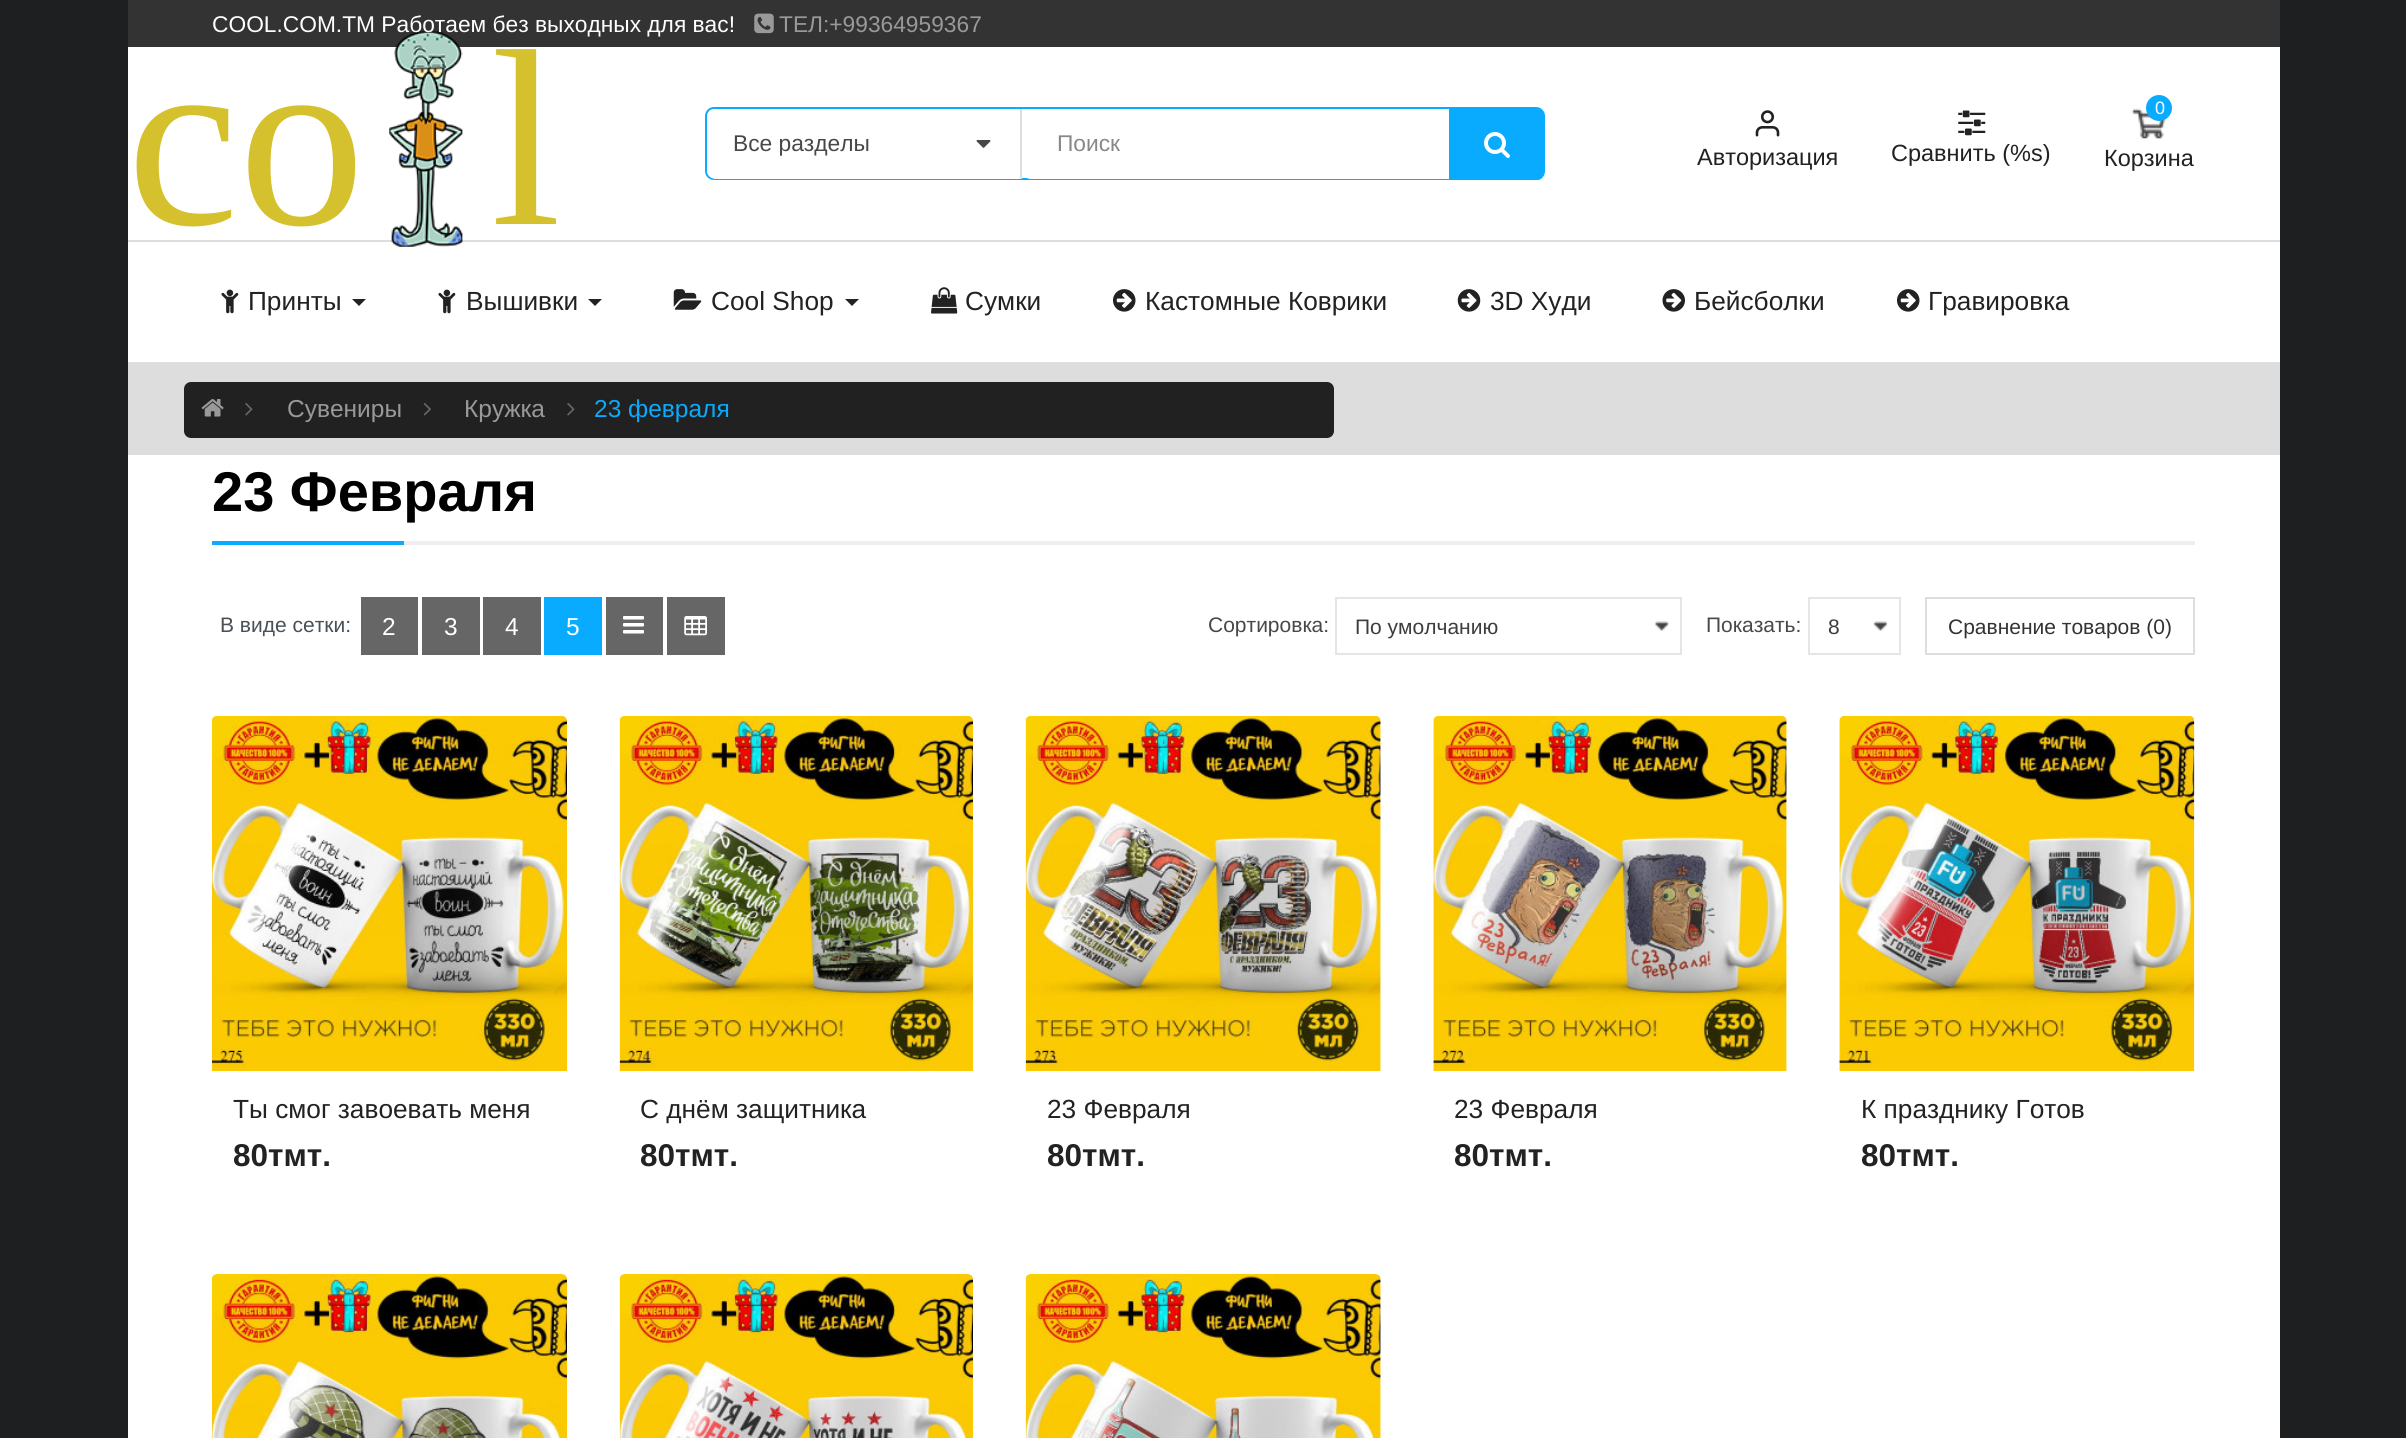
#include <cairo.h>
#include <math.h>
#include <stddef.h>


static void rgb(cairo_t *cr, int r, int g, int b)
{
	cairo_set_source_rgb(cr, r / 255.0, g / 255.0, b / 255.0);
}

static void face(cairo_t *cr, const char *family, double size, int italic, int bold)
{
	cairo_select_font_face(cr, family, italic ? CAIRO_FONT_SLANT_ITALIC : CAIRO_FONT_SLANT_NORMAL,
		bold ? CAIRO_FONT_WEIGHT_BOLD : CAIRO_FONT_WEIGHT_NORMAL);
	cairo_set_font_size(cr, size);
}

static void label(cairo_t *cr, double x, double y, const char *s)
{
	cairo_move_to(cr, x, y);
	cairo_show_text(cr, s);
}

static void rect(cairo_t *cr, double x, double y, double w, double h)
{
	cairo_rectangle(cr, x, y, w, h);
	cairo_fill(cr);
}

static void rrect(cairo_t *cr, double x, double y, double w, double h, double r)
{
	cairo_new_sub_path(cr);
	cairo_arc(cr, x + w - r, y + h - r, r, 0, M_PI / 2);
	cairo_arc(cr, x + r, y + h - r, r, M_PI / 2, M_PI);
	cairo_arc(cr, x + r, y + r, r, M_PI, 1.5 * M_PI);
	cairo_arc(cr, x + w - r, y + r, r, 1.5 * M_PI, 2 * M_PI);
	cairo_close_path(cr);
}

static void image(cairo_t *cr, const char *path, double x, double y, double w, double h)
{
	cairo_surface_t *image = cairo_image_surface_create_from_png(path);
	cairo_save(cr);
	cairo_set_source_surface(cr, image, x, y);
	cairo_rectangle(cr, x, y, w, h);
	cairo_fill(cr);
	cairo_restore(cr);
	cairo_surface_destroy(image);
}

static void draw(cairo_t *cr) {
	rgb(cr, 29, 31, 33);
	cairo_paint(cr);
	rgb(cr, 255, 255, 255);
	rect(cr, 128, 47, 2152, 1391);
	rgb(cr, 221, 221, 221);
	rect(cr, 128, 362, 2152, 93);
	rgb(cr, 51, 51, 51);
	rect(cr, 128, 0, 2152, 47);
	rgb(cr, 221, 221, 221);
	rect(cr, 128, 240, 2152, 2);
	image(cr, "image13.png", 389, 31, 74, 216);
	face(cr, "Liberation Sans", 22.75, 0, 0);
	rgb(cr, 255, 255, 255);
	label(cr, 212, 32, "COOL.COM.TM Работаем без выходных для вас!");
	image(cr, "image0.png", 754, 13, 20, 21);
	rgb(cr, 153, 153, 153);
	label(cr, 779, 32, "ТЕЛ:+99364959367");
	rrect(cr, 706, 108, 838, 71, 8);
	rgb(cr, 9, 171, 254);
	cairo_stroke(cr);
	rgb(cr, 255, 255, 255);
	cairo_new_path(cr);
	cairo_move_to(cr, 716, 109);
	cairo_line_to(cr, 1022, 109);
	cairo_line_to(cr, 1022, 179);
	cairo_line_to(cr, 716, 179);
	cairo_curve_to(cr, 711, 179, 707, 175, 707, 170);
	cairo_line_to(cr, 707, 118);
	cairo_curve_to(cr, 707, 113, 711, 109, 716, 109);
	cairo_close_path(cr);
	cairo_fill(cr);
	rgb(cr, 221, 221, 221);
	rect(cr, 1020, 109, 2, 70);
	rgb(cr, 72, 72, 72);
	label(cr, 733, 151, "Все разделы");
	image(cr, "image1.png", 976, 140, 15, 8);
	rgb(cr, 255, 255, 255);
	rrect(cr, 1022, 109, 515, 70, 9);
	cairo_fill(cr);
	rgb(cr, 136, 136, 136);
	label(cr, 1057, 151, "Поиск");
	rgb(cr, 9, 171, 254);
	cairo_new_path(cr);
	cairo_move_to(cr, 1449, 109);
	cairo_line_to(cr, 1537, 109);
	cairo_curve_to(cr, 1541, 109, 1544, 112, 1544, 116);
	cairo_line_to(cr, 1544, 173);
	cairo_curve_to(cr, 1544, 177, 1541, 180, 1537, 180);
	cairo_line_to(cr, 1449, 180);
	cairo_close_path(cr);
	cairo_fill(cr);
	image(cr, "image2.png", 1484, 132, 26, 26);
	image(cr, "image3.png", 1755, 110, 25, 27);
	face(cr, "Liberation Sans", 23.5, 0, 0);
	rgb(cr, 34, 34, 34);
	label(cr, 1697, 165, "Авторизация");
	image(cr, "image4.png", 1958, 110, 28, 26);
	label(cr, 1891, 161, "Сравнить (%s)");
	image(cr, "image5.png", 2131, 108, 35, 31);
	rgb(cr, 9, 171, 254);
	cairo_arc(cr, 2159, 108, 13, 0, 2 * M_PI);
	cairo_fill(cr);
	face(cr, "Liberation Sans", 18, 0, 0);
	rgb(cr, 255, 255, 255);
	label(cr, 2155, 114, "0");
	face(cr, "Liberation Sans", 23.5, 0, 0);
	rgb(cr, 34, 34, 34);
	label(cr, 2104, 166, "Корзина");
	image(cr, "image6.png", 221, 289, 18, 25);
	face(cr, "Liberation Sans", 26.25, 0, 0);
	label(cr, 248, 310, "Принты");
	cairo_new_path(cr);
	cairo_move_to(cr, 352, 299);
	cairo_line_to(cr, 366, 299);
	cairo_line_to(cr, 359, 306);
	cairo_close_path(cr);
	cairo_fill(cr);
	image(cr, "image6.png", 438, 289, 18, 25);
	label(cr, 466, 310, "Вышивки");
	cairo_new_path(cr);
	cairo_move_to(cr, 588, 299);
	cairo_line_to(cr, 602, 299);
	cairo_line_to(cr, 595, 306);
	cairo_close_path(cr);
	cairo_fill(cr);
	image(cr, "image7.png", 673, 289, 29, 21);
	label(cr, 711, 310, "Cool Shop");
	cairo_new_path(cr);
	cairo_move_to(cr, 845, 299);
	cairo_line_to(cr, 859, 299);
	cairo_line_to(cr, 852, 306);
	cairo_close_path(cr);
	cairo_fill(cr);
	image(cr, "image8.png", 931, 287, 27, 27);
	label(cr, 965, 310, "Сумки");
	image(cr, "image9.png", 1113, 289, 23, 23);
	label(cr, 1145, 310, "Кастомные Коврики");
	image(cr, "image10.png", 1457, 289, 24, 23);
	label(cr, 1490, 310, "3D Худи");
	image(cr, "image11.png", 1662, 289, 23, 23);
	label(cr, 1694, 310, "Бейсболки");
	image(cr, "image12.png", 1897, 289, 23, 23);
	label(cr, 1928, 310, "Гравировка");
	face(cr, "Liberation Serif", 252, 0, 0);
	rgb(cr, 213, 193, 46);
	label(cr, 127, 224, "co");
	label(cr, 491, 224, "l");
	rgb(cr, 33, 33, 33);
	rrect(cr, 184, 382, 1150, 56, 7);
	cairo_fill(cr);
	image(cr, "image14.png", 201, 399, 23, 18);
	image(cr, "image15.png", 245, 403, 8, 13);
	face(cr, "Liberation Sans", 24.5, 0, 0);
	rgb(cr, 153, 153, 153);
	label(cr, 287, 417, "Сувениры");
	image(cr, "image16.png", 423, 403, 8, 13);
	label(cr, 464, 417, "Кружка");
	image(cr, "image15.png", 567, 403, 8, 13);
	rgb(cr, 9, 171, 254);
	label(cr, 594, 417, "23 февраля");
	rgb(cr, 238, 238, 238);
	rect(cr, 404, 541, 1791, 4);
	face(cr, "Liberation Sans", 56, 0, 1);
	rgb(cr, 0, 0, 0);
	label(cr, 212, 511, "23 Февраля");
	rgb(cr, 9, 171, 254);
	rect(cr, 212, 541, 192, 4);
	face(cr, "Liberation Sans", 21, 0, 0);
	rgb(cr, 73, 80, 87);
	label(cr, 220, 632, "В виде сетки:");
	rgb(cr, 102, 102, 102);
	rect(cr, 361, 597, 57, 58);
	face(cr, "Liberation Sans", 24.5, 0, 0);
	rgb(cr, 255, 255, 255);
	label(cr, 382, 635, "2");
	rgb(cr, 102, 102, 102);
	rect(cr, 422, 597, 58, 58);
	rgb(cr, 255, 255, 255);
	label(cr, 444, 635, "3");
	rgb(cr, 102, 102, 102);
	rect(cr, 483, 597, 58, 58);
	rgb(cr, 255, 255, 255);
	label(cr, 505, 635, "4");
	rgb(cr, 9, 171, 254);
	rect(cr, 544, 597, 58, 58);
	rgb(cr, 255, 255, 255);
	label(cr, 566, 635, "5");
	rgb(cr, 102, 102, 102);
	rect(cr, 606, 597, 57, 58);
	image(cr, "image17.png", 623, 616, 21, 18);
	rect(cr, 667, 597, 58, 58);
	image(cr, "image18.png", 684, 616, 23, 20);
	face(cr, "Liberation Sans", 21, 0, 0);
	rgb(cr, 72, 72, 72);
	label(cr, 1208, 632, "Сортировка:");
	image(cr, "image19.png", 1655, 621, 15, 10);
	cairo_rectangle(cr, 1336, 598, 345, 56);
	rgb(cr, 229, 229, 229);
	cairo_stroke(cr);
	rgb(cr, 61, 61, 61);
	label(cr, 1355, 634, "По умолчанию");
	rgb(cr, 72, 72, 72);
	label(cr, 1706, 632, "Показать:");
	image(cr, "image20.png", 1873, 621, 15, 10);
	cairo_rectangle(cr, 1809, 598, 91, 56);
	rgb(cr, 229, 229, 229);
	cairo_stroke(cr);
	rgb(cr, 61, 61, 61);
	label(cr, 1828, 634, "8");
	cairo_rectangle(cr, 1926, 598, 268, 56);
	rgb(cr, 221, 221, 221);
	cairo_stroke(cr);
	rgb(cr, 51, 51, 51);
	label(cr, 1948, 634, "Сравнение товаров (0)");
	image(cr, "image21.png", 212, 716, 355, 355);
	face(cr, "Liberation Sans", 26.25, 0, 0);
	rgb(cr, 34, 34, 34);
	label(cr, 233, 1118, "Ты смог завоевать меня");
	face(cr, "Liberation Sans", 31.5, 0, 1);
	label(cr, 233, 1166, "80тмт.");
	image(cr, "image22.png", 619, 716, 354, 355);
	face(cr, "Liberation Sans", 26.25, 0, 0);
	label(cr, 640, 1118, "С днём защитника");
	face(cr, "Liberation Sans", 31.5, 0, 1);
	label(cr, 640, 1166, "80тмт.");
	image(cr, "image23.png", 1025, 716, 356, 355);
	face(cr, "Liberation Sans", 26.25, 0, 0);
	label(cr, 1047, 1118, "23 Февраля");
	face(cr, "Liberation Sans", 31.5, 0, 1);
	label(cr, 1047, 1166, "80тмт.");
	image(cr, "image24.png", 1433, 716, 354, 355);
	face(cr, "Liberation Sans", 26.25, 0, 0);
	label(cr, 1454, 1118, "23 Февраля");
	face(cr, "Liberation Sans", 31.5, 0, 1);
	label(cr, 1454, 1166, "80тмт.");
	image(cr, "image25.png", 1839, 716, 356, 355);
	face(cr, "Liberation Sans", 26.25, 0, 0);
	label(cr, 1861, 1118, "К празднику Готов");
	face(cr, "Liberation Sans", 31.5, 0, 1);
	label(cr, 1861, 1166, "80тмт.");
	image(cr, "image26.png", 212, 1274, 355, 164);
	image(cr, "image27.png", 619, 1274, 354, 164);
	image(cr, "image28.png", 1025, 1274, 356, 164);
}

int main(void) {
	cairo_surface_t *surface = cairo_image_surface_create(CAIRO_FORMAT_RGB24, 2406, 1438);
	cairo_t *cr = cairo_create(surface);
	cairo_font_options_t *options = cairo_font_options_create();
	cairo_font_options_set_hint_metrics(options, CAIRO_HINT_METRICS_OFF);
	cairo_font_options_set_hint_style(options, CAIRO_HINT_STYLE_NONE);
	cairo_set_font_options(cr, options);
	cairo_set_miter_limit(cr, 4);
	draw(cr);
	cairo_surface_write_to_png(surface, "render.png");
	cairo_font_options_destroy(options);
	cairo_destroy(cr);
	cairo_surface_destroy(surface);
	return 0;
}
